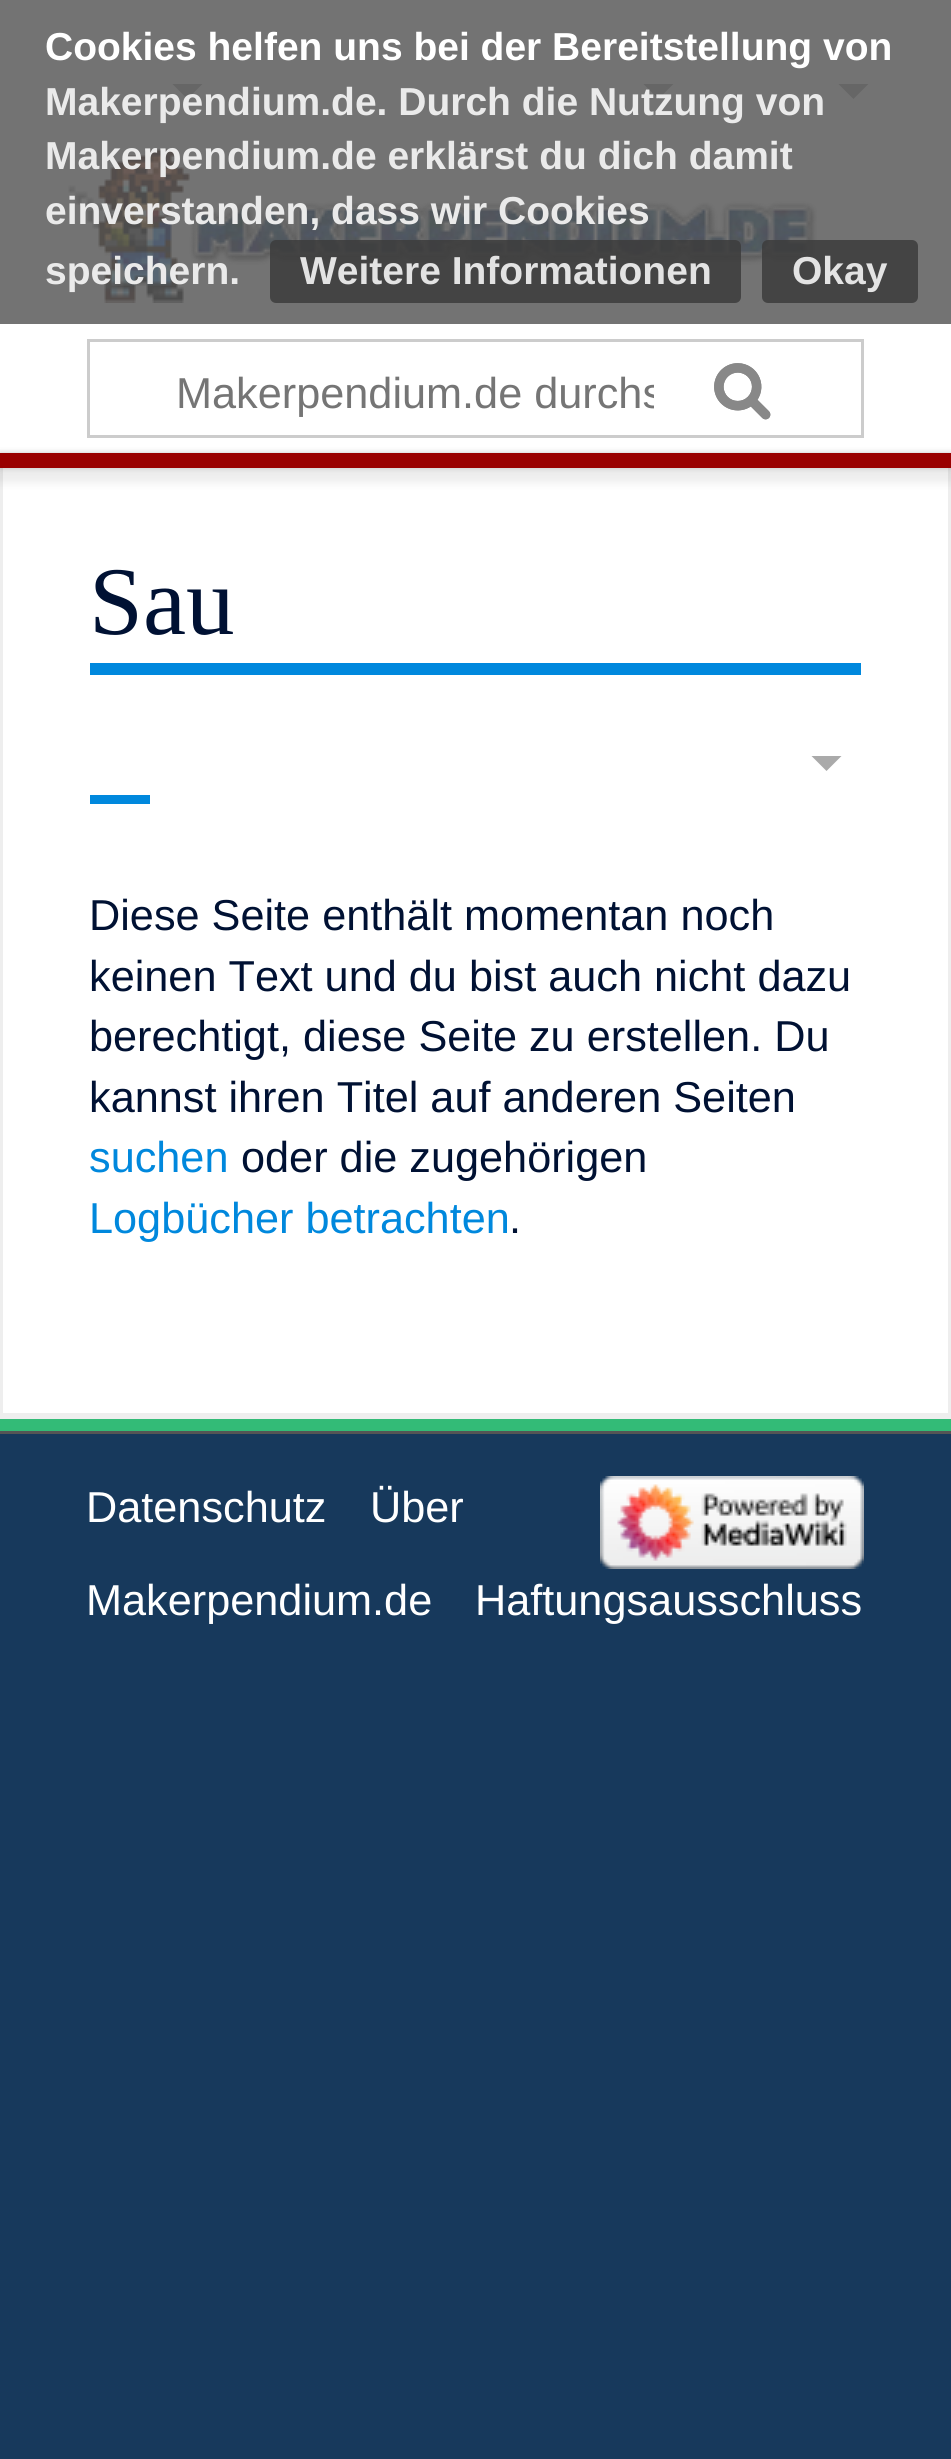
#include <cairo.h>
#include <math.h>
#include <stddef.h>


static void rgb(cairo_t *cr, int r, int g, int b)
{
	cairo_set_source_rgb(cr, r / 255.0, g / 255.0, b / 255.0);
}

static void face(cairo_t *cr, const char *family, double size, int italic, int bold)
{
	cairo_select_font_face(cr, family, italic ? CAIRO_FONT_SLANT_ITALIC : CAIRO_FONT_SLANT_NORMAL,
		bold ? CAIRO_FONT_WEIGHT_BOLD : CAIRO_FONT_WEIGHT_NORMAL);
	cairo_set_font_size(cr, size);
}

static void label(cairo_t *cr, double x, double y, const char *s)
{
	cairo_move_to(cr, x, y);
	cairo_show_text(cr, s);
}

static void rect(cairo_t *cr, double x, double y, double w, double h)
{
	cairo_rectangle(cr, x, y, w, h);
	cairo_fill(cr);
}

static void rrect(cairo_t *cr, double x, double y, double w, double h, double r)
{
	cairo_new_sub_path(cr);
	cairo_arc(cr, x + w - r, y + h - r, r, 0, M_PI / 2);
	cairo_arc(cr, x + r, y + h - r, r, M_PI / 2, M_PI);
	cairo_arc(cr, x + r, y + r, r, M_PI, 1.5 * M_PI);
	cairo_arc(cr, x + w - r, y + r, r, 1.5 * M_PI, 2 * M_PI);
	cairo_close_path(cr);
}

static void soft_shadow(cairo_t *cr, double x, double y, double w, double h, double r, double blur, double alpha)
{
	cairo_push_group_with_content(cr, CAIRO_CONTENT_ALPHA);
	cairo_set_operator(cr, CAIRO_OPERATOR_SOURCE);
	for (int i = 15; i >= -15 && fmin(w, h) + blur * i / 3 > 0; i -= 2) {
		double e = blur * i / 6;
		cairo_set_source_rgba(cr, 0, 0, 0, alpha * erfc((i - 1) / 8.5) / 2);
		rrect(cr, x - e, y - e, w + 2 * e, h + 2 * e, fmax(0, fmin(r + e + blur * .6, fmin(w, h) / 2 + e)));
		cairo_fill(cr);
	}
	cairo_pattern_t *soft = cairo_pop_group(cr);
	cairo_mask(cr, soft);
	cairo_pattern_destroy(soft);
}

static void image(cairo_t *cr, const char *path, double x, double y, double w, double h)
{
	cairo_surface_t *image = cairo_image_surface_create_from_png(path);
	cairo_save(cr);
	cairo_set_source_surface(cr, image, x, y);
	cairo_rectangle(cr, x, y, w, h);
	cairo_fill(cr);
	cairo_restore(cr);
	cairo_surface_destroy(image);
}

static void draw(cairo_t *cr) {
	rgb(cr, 23, 57, 92);
	cairo_paint(cr);
	rgb(cr, 115, 115, 115);
	rect(cr, 0, 0, 951, 324);
	face(cr, "Liberation Sans", 39, 0, 1);
	rgb(cr, 255, 255, 255);
	label(cr, 45, 60, "Cookies helfen uns bei der Bereitstellung von");
	rgb(cr, 102, 102, 102);
	cairo_new_path(cr);
	cairo_move_to(cr, 202.5, 84);
	cairo_line_to(cr, 187.5, 99);
	cairo_line_to(cr, 172.5, 84);
	cairo_close_path(cr);
	cairo_fill(cr);
	cairo_new_path(cr);
	cairo_move_to(cr, 673.5, 84);
	cairo_line_to(cr, 658.5, 99);
	cairo_line_to(cr, 643.5, 84);
	cairo_close_path(cr);
	cairo_fill(cr);
	rgb(cr, 234, 234, 234);
	label(cr, 45, 115, "Makerpendium.de. Durch die Nutzung von");
	image(cr, "image0.png", 68, 149, 749, 154);
	label(cr, 45, 169, "Makerpendium.de erklärst du dich damit");
	label(cr, 45, 224, "einverstanden, dass wir Cookies");
	label(cr, 45, 284, "speichern.");
	cairo_set_source_rgba(cr, 0.235, 0.235, 0.235, 0.85);
	rrect(cr, 270, 240, 471, 63, 6);
	cairo_fill(cr);
	rgb(cr, 227, 227, 227);
	label(cr, 300, 284, "Weitere Informationen");
	cairo_set_source_rgba(cr, 0.235, 0.235, 0.235, 0.85);
	rrect(cr, 762, 240, 156, 63, 6);
	cairo_fill(cr);
	rgb(cr, 227, 227, 227);
	label(cr, 792, 284, "Okay");
	rgb(cr, 255, 255, 255);
	rect(cr, 0, 324, 951, 129);
	rgb(cr, 102, 102, 102);
	cairo_new_path(cr);
	cairo_move_to(cr, 868.5, 84);
	cairo_line_to(cr, 853.5, 99);
	cairo_line_to(cr, 838.5, 84);
	cairo_close_path(cr);
	cairo_fill(cr);
	cairo_rectangle(cr, 88.5, 340.5, 774, 96);
	rgb(cr, 204, 204, 204);
	cairo_set_line_width(cr, 3);
	cairo_stroke(cr);
	image(cr, "image1.png", 714, 363, 57, 57);
	cairo_save(cr);
	cairo_rectangle(cr, 177, 369, 477, 48);
	cairo_clip(cr);
	face(cr, "Liberation Sans", 43.25, 0, 0);
	rgb(cr, 117, 117, 117);
	label(cr, 176, 408, "Makerpendium.de durchs");
	cairo_restore(cr);
	image(cr, "image2.png", 714, 363, 57, 57);
	rgb(cr, 255, 255, 255);
	rect(cr, 3, 468, 945, 945);
	rgb(cr, 238, 238, 238);
	rect(cr, 948, 468, 3, 951);
	rect(cr, 0, 1413, 951, 6);
	rect(cr, 0, 468, 3, 951);
	rgb(cr, 0, 0, 0);
	soft_shadow(cr, 0, 453, 951, 15, 0, 3, 0.2);
	soft_shadow(cr, -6, 456, 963, 27, 0, 4.5, 0.07);
	rgb(cr, 153, 0, 0);
	rect(cr, 0, 453, 951, 15);
	rgb(cr, 51, 187, 119);
	rect(cr, 0, 1419, 951, 12);
	rgb(cr, 0, 136, 221);
	rect(cr, 90, 663, 771, 12);
	face(cr, "Liberation Serif", 97, 0, 0);
	rgb(cr, 0, 17, 51);
	label(cr, 89, 634, "Sau");
	rgb(cr, 170, 170, 170);
	cairo_new_path(cr);
	cairo_move_to(cr, 841.5, 756);
	cairo_line_to(cr, 826.5, 771);
	cairo_line_to(cr, 811.5, 756);
	cairo_close_path(cr);
	cairo_fill(cr);
	rgb(cr, 0, 136, 221);
	rect(cr, 90, 795, 60, 9);
	face(cr, "Liberation Sans", 43.25, 0, 0);
	rgb(cr, 0, 17, 51);
	label(cr, 89, 930, "Diese Seite enthält momentan noch");
	label(cr, 89, 991, "keinen Text und du bist auch nicht dazu");
	label(cr, 89, 1051, "berechtigt, diese Seite zu erstellen. Du");
	label(cr, 89, 1112, "kannst ihren Titel auf anderen Seiten");
	rgb(cr, 0, 136, 221);
	label(cr, 89, 1172, "suchen");
	rgb(cr, 0, 17, 51);
	label(cr, 241, 1172, "oder die zugehörigen");
	rgb(cr, 0, 136, 221);
	label(cr, 89, 1233, "Logbücher betrachten");
	rgb(cr, 0, 17, 51);
	label(cr, 509, 1233, ".");
	rgb(cr, 85, 85, 85);
	rect(cr, 0, 1431, 951, 3);
	image(cr, "image3.png", 600, 1476, 264, 93);
	rgb(cr, 255, 255, 255);
	label(cr, 86, 1522, "Datenschutz");
	label(cr, 370, 1522, "Über");
	label(cr, 86, 1615, "Makerpendium.de");
	label(cr, 475, 1615, "Haftungsausschluss");
}

int main(void) {
	cairo_surface_t *surface = cairo_image_surface_create(CAIRO_FORMAT_RGB24, 951, 2459);
	cairo_t *cr = cairo_create(surface);
	cairo_font_options_t *options = cairo_font_options_create();
	cairo_font_options_set_hint_metrics(options, CAIRO_HINT_METRICS_OFF);
	cairo_font_options_set_hint_style(options, CAIRO_HINT_STYLE_NONE);
	cairo_set_font_options(cr, options);
	cairo_set_miter_limit(cr, 4);
	draw(cr);
	cairo_surface_write_to_png(surface, "render.png");
	cairo_font_options_destroy(options);
	cairo_destroy(cr);
	cairo_surface_destroy(surface);
	return 0;
}
